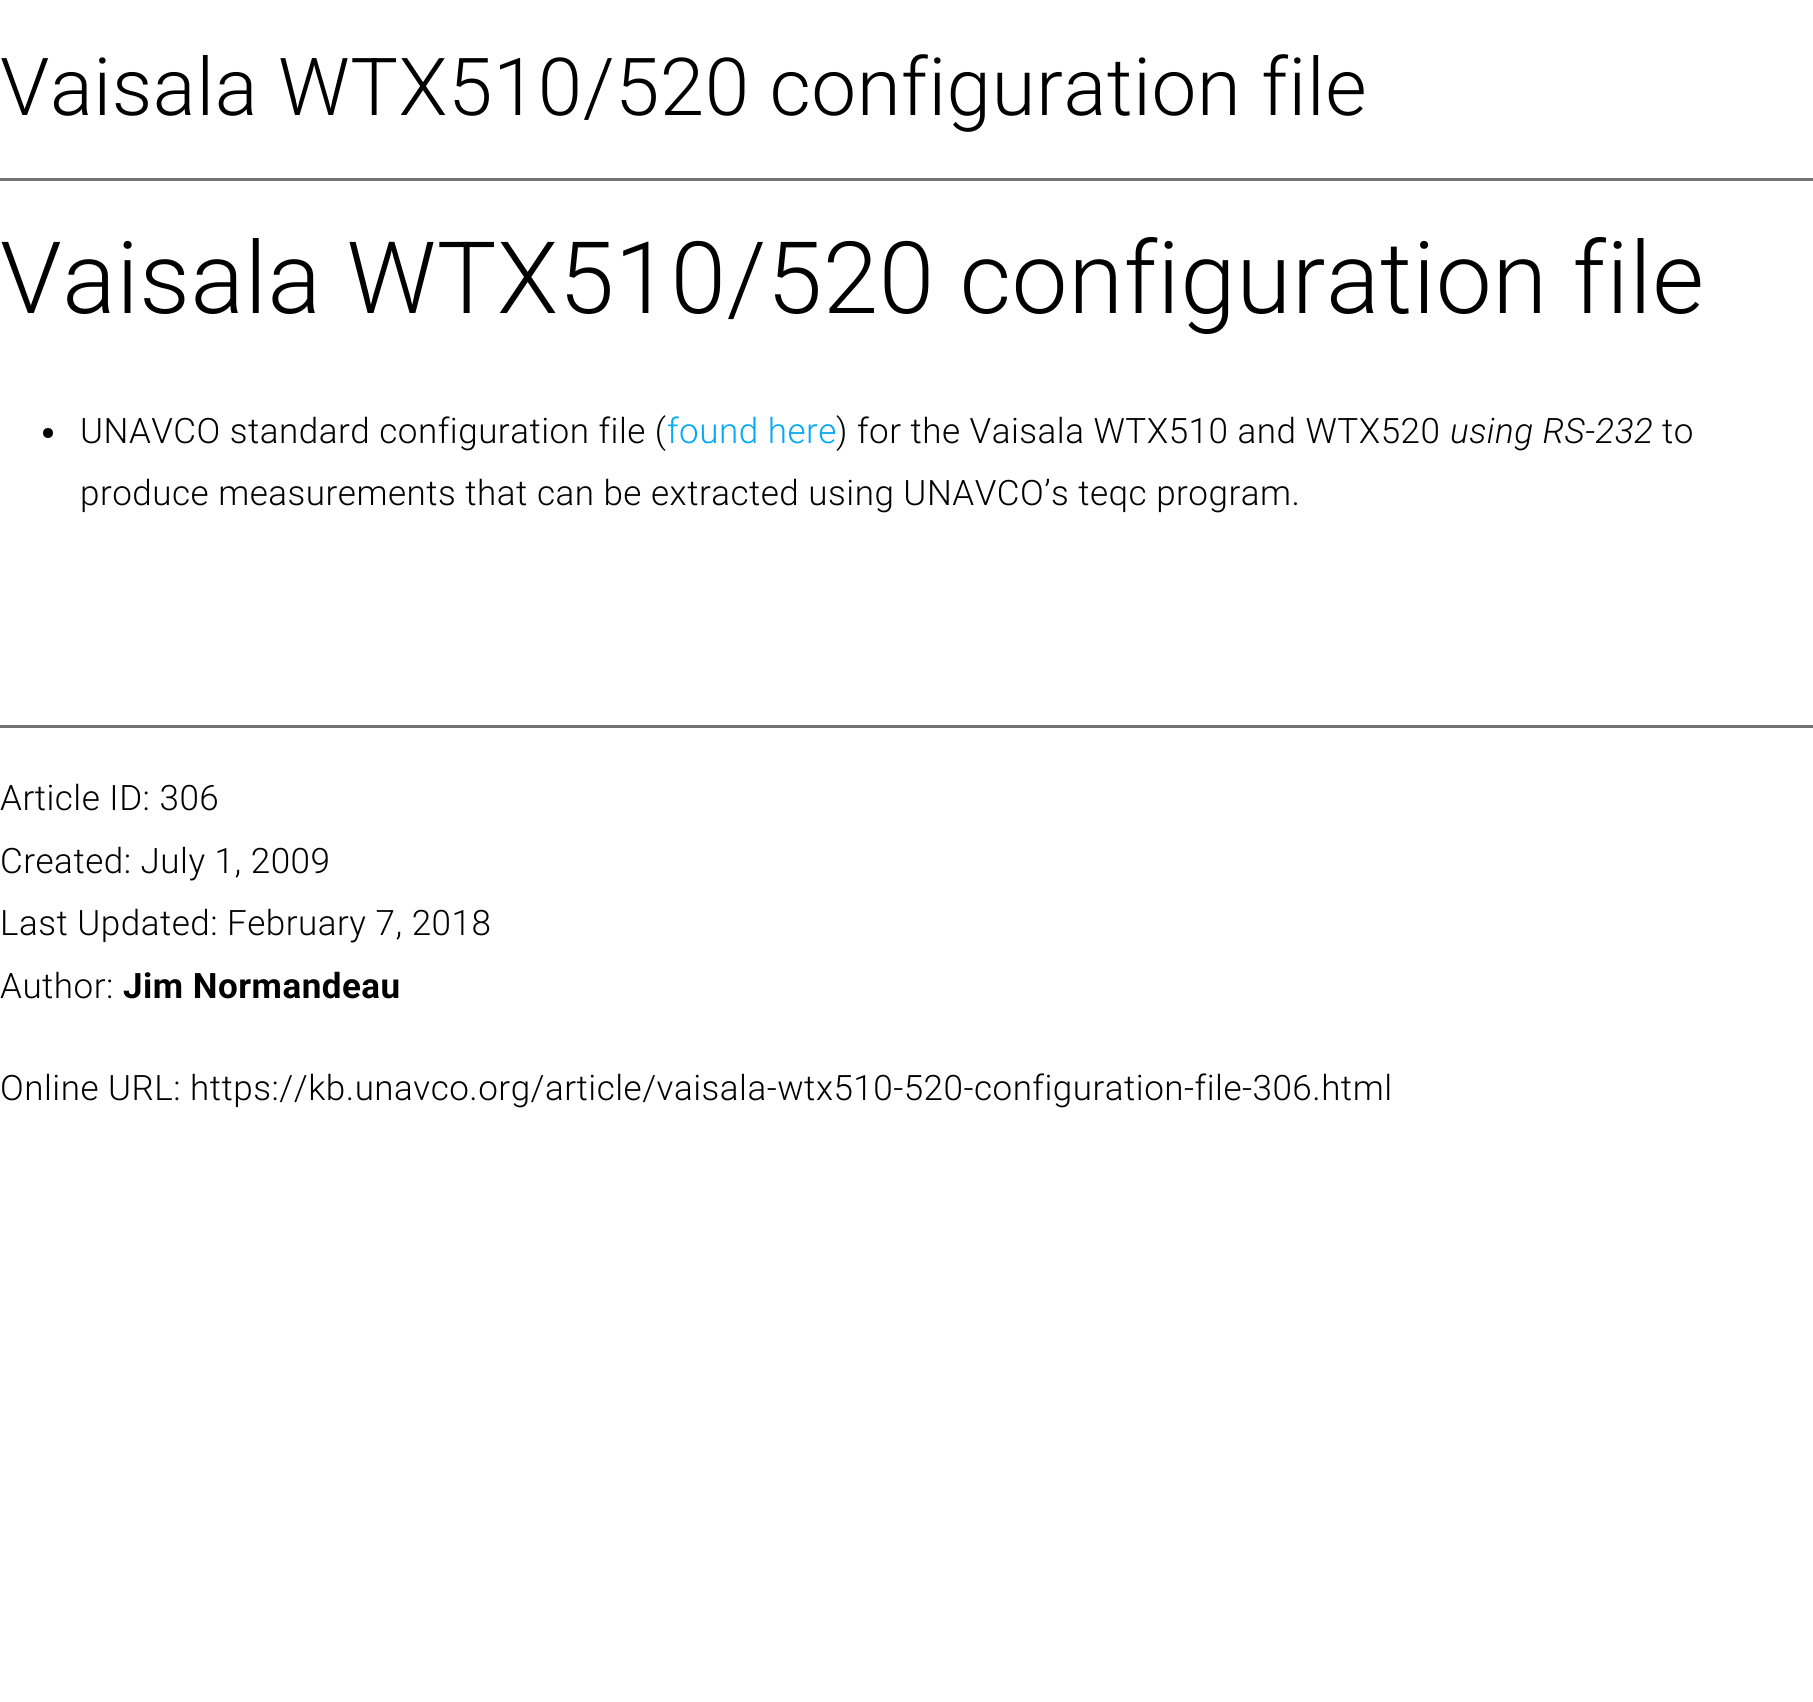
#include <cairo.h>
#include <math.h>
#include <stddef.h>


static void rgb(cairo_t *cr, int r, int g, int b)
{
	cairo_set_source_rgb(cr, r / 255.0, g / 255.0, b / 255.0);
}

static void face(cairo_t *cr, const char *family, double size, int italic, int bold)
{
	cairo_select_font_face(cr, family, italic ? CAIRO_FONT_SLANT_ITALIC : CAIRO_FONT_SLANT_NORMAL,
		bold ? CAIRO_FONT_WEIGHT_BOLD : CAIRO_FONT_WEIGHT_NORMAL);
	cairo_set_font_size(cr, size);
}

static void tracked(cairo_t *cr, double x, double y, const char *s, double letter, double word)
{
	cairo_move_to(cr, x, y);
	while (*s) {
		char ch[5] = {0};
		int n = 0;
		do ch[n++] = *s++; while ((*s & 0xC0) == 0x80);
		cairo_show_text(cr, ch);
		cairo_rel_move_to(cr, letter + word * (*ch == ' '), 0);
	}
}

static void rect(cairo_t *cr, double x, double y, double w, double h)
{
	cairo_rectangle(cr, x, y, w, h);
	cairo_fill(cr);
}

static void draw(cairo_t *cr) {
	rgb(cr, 255, 255, 255);
	cairo_paint(cr);
	face(cr, "Roboto Light", 80, 0, 0);
	rgb(cr, 0, 0, 0);
	tracked(cr, 0, 115, "Vaisala WTX510/520 configuration file", 0.5, 0);
	rgb(cr, 115, 115, 115);
	rect(cr, 0, 178, 1813, 3);
	face(cr, "Roboto Light", 100, 0, 0);
	rgb(cr, 0, 0, 0);
	tracked(cr, 0, 313, "Vaisala WTX510/520 configuration file", 0.5, 0);
	cairo_new_path(cr);
	cairo_arc(cr, 48, 433, 5, 0, 2 * M_PI);
	cairo_fill(cr);
	face(cr, "Roboto Light", 35, 0, 0);
	tracked(cr, 80, 443, "UNAVCO standard configuration file (", 0.5, 0);
	rgb(cr, 3, 169, 244);
	tracked(cr, 667, 443, "found here", 0.5, 0);
	rgb(cr, 0, 0, 0);
	tracked(cr, 836, 443, ") for the Vaisala WTX510 and WTX520", 0.5, 0);
	face(cr, "Roboto Light", 35, 1, 0);
	tracked(cr, 1450, 443, "using RS-232", 0.5, 0);
	face(cr, "Roboto Light", 35, 0, 0);
	tracked(cr, 1662, 443, "to", 0.5, 0);
	tracked(cr, 80, 505, "produce measurements that can be extracted using UNAVCO’s teqc program.", 0.5, 0);
	rgb(cr, 115, 115, 115);
	rect(cr, 0, 725, 1813, 3);
	rgb(cr, 0, 0, 0);
	tracked(cr, 0, 810, "Article ID: 306", 0.5, 0);
	tracked(cr, 0, 873, "Created: July 1, 2009", 0.5, 0);
	tracked(cr, 0, 935, "Last Updated: February 7, 2018", 0.5, 0);
	tracked(cr, 0, 998, "Author:", 0.5, 0);
	face(cr, "Roboto", 35, 0, 1);
	tracked(cr, 123, 998, "Jim Normandeau", 0.5, 0);
	face(cr, "Roboto Light", 35, 0, 0);
	tracked(cr, 0, 1100, "Online URL: https://kb.unavco.org/article/vaisala-wtx510-520-configuration-file-306.html", 0.5, 0);
}

int main(void) {
	cairo_surface_t *surface = cairo_image_surface_create(CAIRO_FORMAT_RGB24, 1813, 1702);
	cairo_t *cr = cairo_create(surface);
	cairo_font_options_t *options = cairo_font_options_create();
	cairo_font_options_set_hint_metrics(options, CAIRO_HINT_METRICS_OFF);
	cairo_font_options_set_hint_style(options, CAIRO_HINT_STYLE_NONE);
	cairo_set_font_options(cr, options);
	cairo_set_miter_limit(cr, 4);
	draw(cr);
	cairo_surface_write_to_png(surface, "render.png");
	cairo_font_options_destroy(options);
	cairo_destroy(cr);
	cairo_surface_destroy(surface);
	return 0;
}
